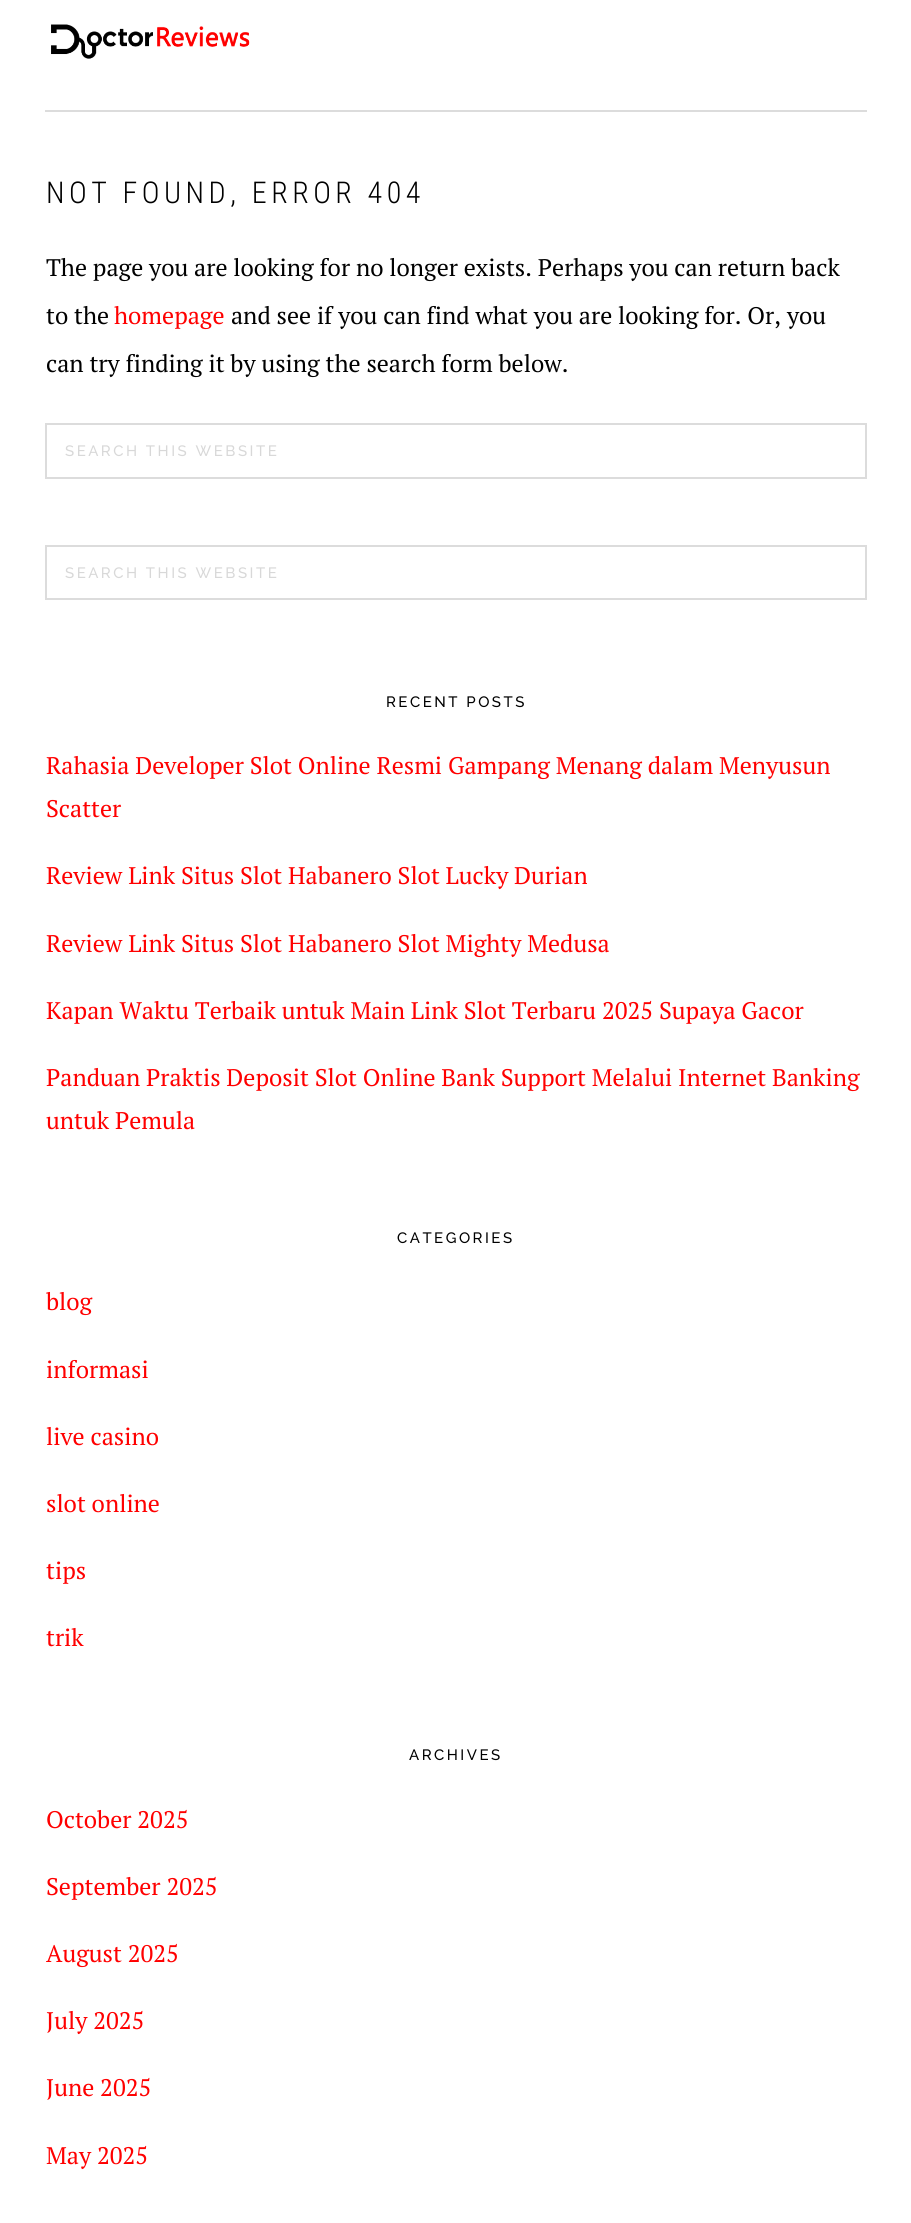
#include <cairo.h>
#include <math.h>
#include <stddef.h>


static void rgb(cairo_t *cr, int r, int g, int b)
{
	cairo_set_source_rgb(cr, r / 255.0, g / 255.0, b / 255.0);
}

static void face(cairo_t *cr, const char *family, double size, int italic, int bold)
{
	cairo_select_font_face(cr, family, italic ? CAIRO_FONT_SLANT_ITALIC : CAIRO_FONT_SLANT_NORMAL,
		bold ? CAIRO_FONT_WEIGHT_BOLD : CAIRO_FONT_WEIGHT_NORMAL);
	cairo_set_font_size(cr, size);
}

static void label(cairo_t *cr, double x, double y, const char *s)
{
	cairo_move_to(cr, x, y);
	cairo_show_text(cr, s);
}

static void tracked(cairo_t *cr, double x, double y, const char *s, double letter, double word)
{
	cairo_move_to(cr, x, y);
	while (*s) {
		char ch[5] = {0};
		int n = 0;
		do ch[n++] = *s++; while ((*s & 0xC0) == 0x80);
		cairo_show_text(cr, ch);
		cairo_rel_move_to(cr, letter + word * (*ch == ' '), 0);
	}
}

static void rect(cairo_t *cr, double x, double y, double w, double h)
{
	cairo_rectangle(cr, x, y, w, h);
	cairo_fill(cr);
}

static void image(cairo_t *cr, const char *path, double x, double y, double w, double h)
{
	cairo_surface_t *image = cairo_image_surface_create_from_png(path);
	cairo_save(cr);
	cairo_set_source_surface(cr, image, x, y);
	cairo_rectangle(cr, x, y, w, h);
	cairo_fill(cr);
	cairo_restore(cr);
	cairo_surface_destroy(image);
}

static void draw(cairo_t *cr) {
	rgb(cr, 255, 255, 255);
	cairo_paint(cr);
	image(cr, "image0.png", 51, 24, 199, 35);
	rgb(cr, 220, 220, 220);
	rect(cr, 45, 110, 822, 2);
	face(cr, "Roboto Condensed Light", 30, 0, 0);
	rgb(cr, 0, 0, 0);
	tracked(cr, 46, 203, "NOT FOUND, ERROR 404", 4.5, 0);
	face(cr, "PT Serif", 24, 0, 0);
	label(cr, 46, 276, "The page you are looking for no longer exists. Perhaps you can return back");
	label(cr, 46, 324, "to the");
	rgb(cr, 255, 0, 0);
	label(cr, 114, 324, "homepage");
	rgb(cr, 0, 0, 0);
	label(cr, 231, 324, "and see if you can find what you are looking for. Or, you");
	label(cr, 46, 372, "can try finding it by using the search form below.");
	cairo_rectangle(cr, 46, 424, 820, 54);
	rgb(cr, 220, 220, 220);
	cairo_stroke(cr);
	face(cr, "Raleway Medium", 15, 0, 0);
	rgb(cr, 216, 216, 216);
	tracked(cr, 65, 456, "SEARCH THIS WEBSITE", 2.5, 0);
	cairo_rectangle(cr, 46, 546, 820, 53);
	rgb(cr, 220, 220, 220);
	cairo_stroke(cr);
	rgb(cr, 216, 216, 216);
	tracked(cr, 65, 578, "SEARCH THIS WEBSITE", 2.5, 0);
	rgb(cr, 0, 0, 0);
	tracked(cr, 386, 707, "RECENT POSTS", 2.5, 0);
	face(cr, "PT Serif", 24, 0, 0);
	rgb(cr, 255, 0, 0);
	label(cr, 46, 774, "Rahasia Developer Slot Online Resmi Gampang Menang dalam Menyusun");
	label(cr, 46, 817, "Scatter");
	label(cr, 46, 884, "Review Link Situs Slot Habanero Slot Lucky Durian");
	label(cr, 46, 952, "Review Link Situs Slot Habanero Slot Mighty Medusa");
	label(cr, 46, 1019, "Kapan Waktu Terbaik untuk Main Link Slot Terbaru 2025 Supaya Gacor");
	label(cr, 46, 1086, "Panduan Praktis Deposit Slot Online Bank Support Melalui Internet Banking");
	label(cr, 46, 1129, "untuk Pemula");
	face(cr, "Raleway Medium", 15, 0, 0);
	rgb(cr, 0, 0, 0);
	tracked(cr, 397, 1243, "CATEGORIES", 2.5, 0);
	face(cr, "PT Serif", 24, 0, 0);
	rgb(cr, 255, 0, 0);
	label(cr, 46, 1310, "blog");
	label(cr, 46, 1378, "informasi");
	label(cr, 46, 1445, "live casino");
	label(cr, 46, 1512, "slot online");
	label(cr, 46, 1579, "tips");
	label(cr, 46, 1646, "trik");
	face(cr, "Raleway Medium", 15, 0, 0);
	rgb(cr, 0, 0, 0);
	tracked(cr, 409, 1760, "ARCHIVES", 2.5, 0);
	face(cr, "PT Serif", 24, 0, 0);
	rgb(cr, 255, 0, 0);
	label(cr, 46, 1828, "October 2025");
	label(cr, 46, 1895, "September 2025");
	label(cr, 46, 1962, "August 2025");
	label(cr, 46, 2029, "July 2025");
	label(cr, 46, 2096, "June 2025");
	label(cr, 46, 2164, "May 2025");
}

int main(void) {
	cairo_surface_t *surface = cairo_image_surface_create(CAIRO_FORMAT_RGB24, 911, 2223);
	cairo_t *cr = cairo_create(surface);
	cairo_font_options_t *options = cairo_font_options_create();
	cairo_font_options_set_hint_metrics(options, CAIRO_HINT_METRICS_OFF);
	cairo_font_options_set_hint_style(options, CAIRO_HINT_STYLE_NONE);
	cairo_set_font_options(cr, options);
	cairo_set_miter_limit(cr, 4);
	draw(cr);
	cairo_surface_write_to_png(surface, "render.png");
	cairo_font_options_destroy(options);
	cairo_destroy(cr);
	cairo_surface_destroy(surface);
	return 0;
}
